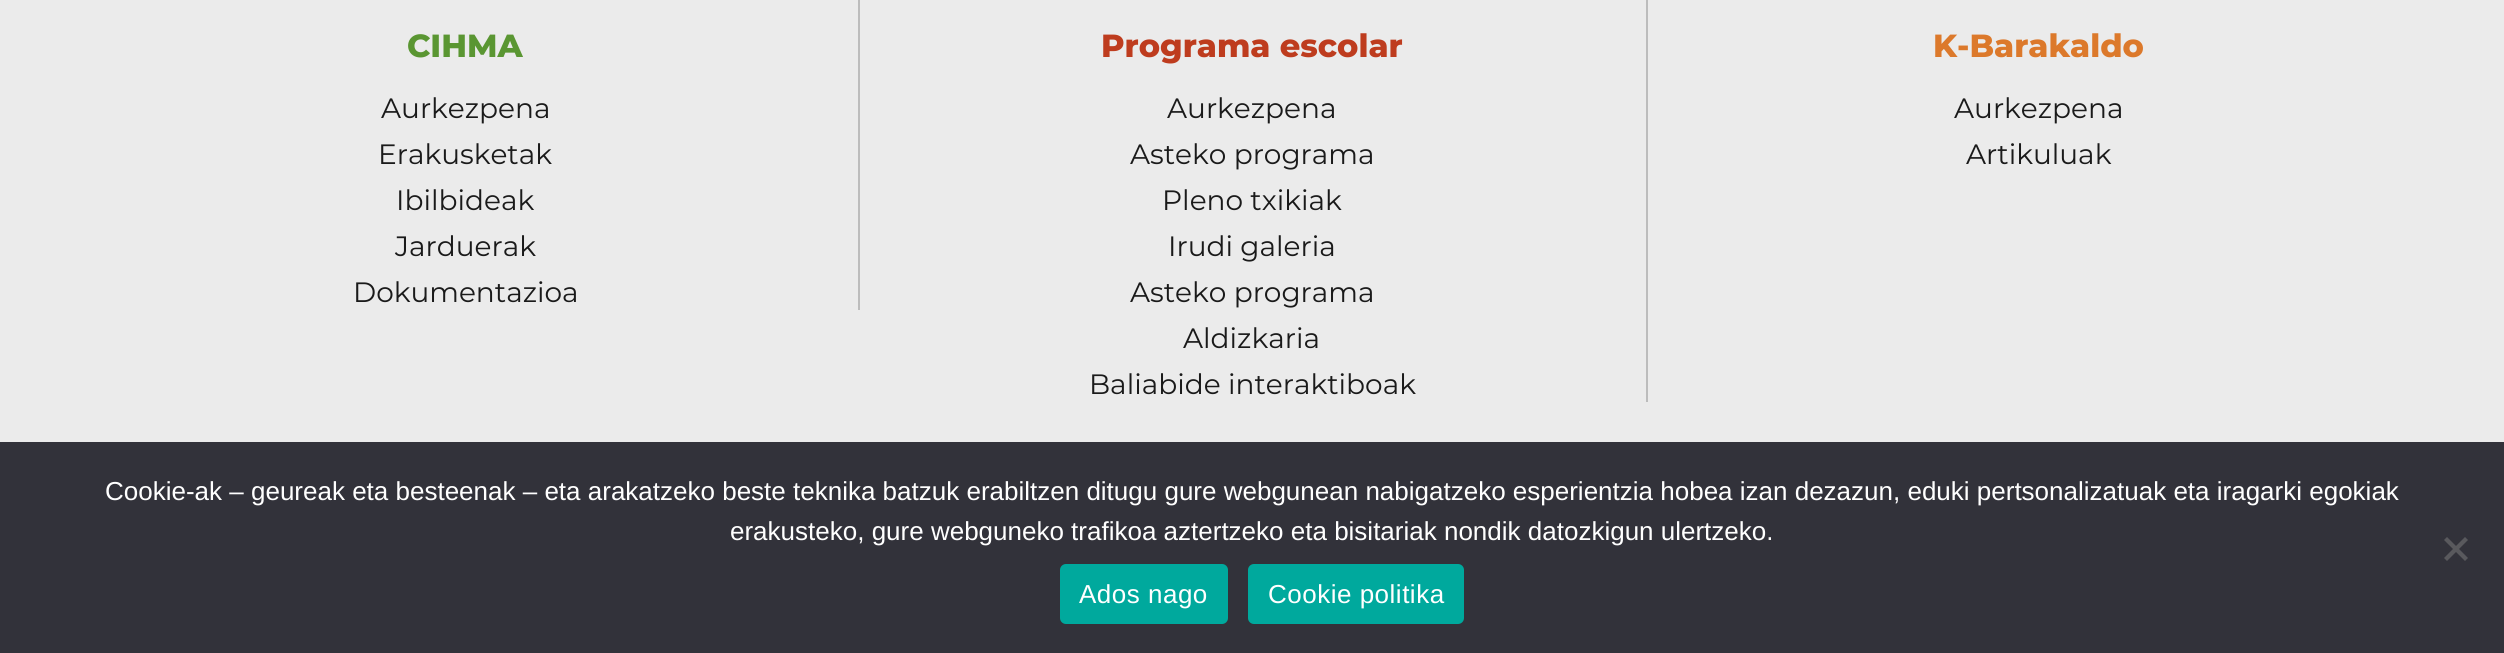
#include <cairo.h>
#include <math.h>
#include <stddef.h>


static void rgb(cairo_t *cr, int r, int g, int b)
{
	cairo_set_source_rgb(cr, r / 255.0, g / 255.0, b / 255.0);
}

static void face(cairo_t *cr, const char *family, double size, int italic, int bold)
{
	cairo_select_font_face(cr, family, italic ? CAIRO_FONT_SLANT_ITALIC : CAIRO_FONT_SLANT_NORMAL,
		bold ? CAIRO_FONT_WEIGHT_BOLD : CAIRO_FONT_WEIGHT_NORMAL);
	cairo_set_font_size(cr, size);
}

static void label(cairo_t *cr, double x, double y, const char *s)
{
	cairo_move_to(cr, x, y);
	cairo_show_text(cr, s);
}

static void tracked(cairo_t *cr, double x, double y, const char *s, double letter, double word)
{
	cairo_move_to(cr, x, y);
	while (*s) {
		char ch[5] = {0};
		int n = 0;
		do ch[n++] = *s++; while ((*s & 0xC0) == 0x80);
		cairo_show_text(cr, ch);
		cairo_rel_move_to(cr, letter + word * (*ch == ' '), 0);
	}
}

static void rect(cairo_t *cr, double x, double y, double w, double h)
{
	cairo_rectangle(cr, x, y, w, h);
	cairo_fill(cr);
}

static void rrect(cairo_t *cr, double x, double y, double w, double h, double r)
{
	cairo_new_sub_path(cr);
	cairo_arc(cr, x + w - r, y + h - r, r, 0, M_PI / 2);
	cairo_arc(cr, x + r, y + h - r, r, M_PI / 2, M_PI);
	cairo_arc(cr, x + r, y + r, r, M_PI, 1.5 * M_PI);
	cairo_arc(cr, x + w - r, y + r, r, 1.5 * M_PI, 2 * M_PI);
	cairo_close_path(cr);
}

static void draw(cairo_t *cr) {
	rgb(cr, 235, 235, 235);
	cairo_paint(cr);
	face(cr, "Montserrat ExtraBold", 32, 0, 0);
	rgb(cr, 90, 150, 50);
	label(cr, 407, 57, "CIHMA");
	rgb(cr, 188, 188, 188);
	rect(cr, 858, 0, 2, 310);
	face(cr, "Montserrat", 28, 0, 0);
	rgb(cr, 26, 26, 26);
	label(cr, 381, 118, "Aurkezpena");
	label(cr, 378, 164, "Erakusketak");
	label(cr, 396, 210, "Ibilbideak");
	label(cr, 395, 256, "Jarduerak");
	label(cr, 353, 302, "Dokumentazioa");
	face(cr, "Montserrat ExtraBold", 32, 0, 0);
	rgb(cr, 190, 60, 30);
	label(cr, 1101, 57, "Programa escolar");
	rgb(cr, 188, 188, 188);
	rect(cr, 1646, 0, 2, 402);
	face(cr, "Montserrat", 28, 0, 0);
	rgb(cr, 26, 26, 26);
	label(cr, 1167, 118, "Aurkezpena");
	label(cr, 1130, 164, "Asteko programa");
	label(cr, 1162, 210, "Pleno txikiak");
	label(cr, 1168, 256, "Irudi galeria");
	label(cr, 1130, 302, "Asteko programa");
	label(cr, 1183, 348, "Aldizkaria");
	label(cr, 1089, 394, "Baliabide interaktiboak");
	face(cr, "Montserrat ExtraBold", 32, 0, 0);
	rgb(cr, 220, 121, 43);
	label(cr, 1933, 57, "K-Barakaldo");
	face(cr, "Montserrat", 28, 0, 0);
	rgb(cr, 26, 26, 26);
	label(cr, 1954, 118, "Aurkezpena");
	label(cr, 1966, 164, "Artikuluak");
	rgb(cr, 50, 50, 58);
	rect(cr, 0, 442, 2504, 211);
	face(cr, "Liberation Sans", 26, 0, 0);
	rgb(cr, 255, 255, 255);
	label(cr, 105, 500, "Cookie-ak – geureak eta besteenak – eta arakatzeko beste teknika batzuk erabiltzen ditugu gure webgunean nabigatzeko esperientzia hobea izan dezazun, eduki pertsonalizatuak eta iragarki egokiak");
	label(cr, 730, 540, "erakusteko, gure webguneko trafikoa aztertzeko eta bisitariak nondik datozkigun ulertzeko.");
	rgb(cr, 89, 89, 93);
	cairo_new_path(cr);
	cairo_move_to(cr, 2465, 537);
	cairo_line_to(cr, 2468, 540);
	cairo_line_to(cr, 2447, 561);
	cairo_line_to(cr, 2444, 558);
	cairo_close_path(cr);
	cairo_fill(cr);
	cairo_new_path(cr);
	cairo_move_to(cr, 2444, 540);
	cairo_line_to(cr, 2447, 537);
	cairo_line_to(cr, 2468, 558);
	cairo_line_to(cr, 2465, 561);
	cairo_close_path(cr);
	cairo_fill(cr);
	rgb(cr, 0, 169, 157);
	rrect(cr, 1060, 564, 168, 60, 6);
	cairo_fill(cr);
	rgb(cr, 255, 255, 255);
	tracked(cr, 1079, 603, "Ados nago", 0.5, 0);
	rgb(cr, 0, 169, 157);
	rrect(cr, 1248, 564, 216, 60, 6);
	cairo_fill(cr);
	rgb(cr, 255, 255, 255);
	tracked(cr, 1268, 603, "Cookie politika", 0.5, 0);
}

int main(void) {
	cairo_surface_t *surface = cairo_image_surface_create(CAIRO_FORMAT_RGB24, 2504, 653);
	cairo_t *cr = cairo_create(surface);
	cairo_font_options_t *options = cairo_font_options_create();
	cairo_font_options_set_hint_metrics(options, CAIRO_HINT_METRICS_OFF);
	cairo_font_options_set_hint_style(options, CAIRO_HINT_STYLE_NONE);
	cairo_set_font_options(cr, options);
	cairo_set_miter_limit(cr, 4);
	draw(cr);
	cairo_surface_write_to_png(surface, "render.png");
	cairo_font_options_destroy(options);
	cairo_destroy(cr);
	cairo_surface_destroy(surface);
	return 0;
}
